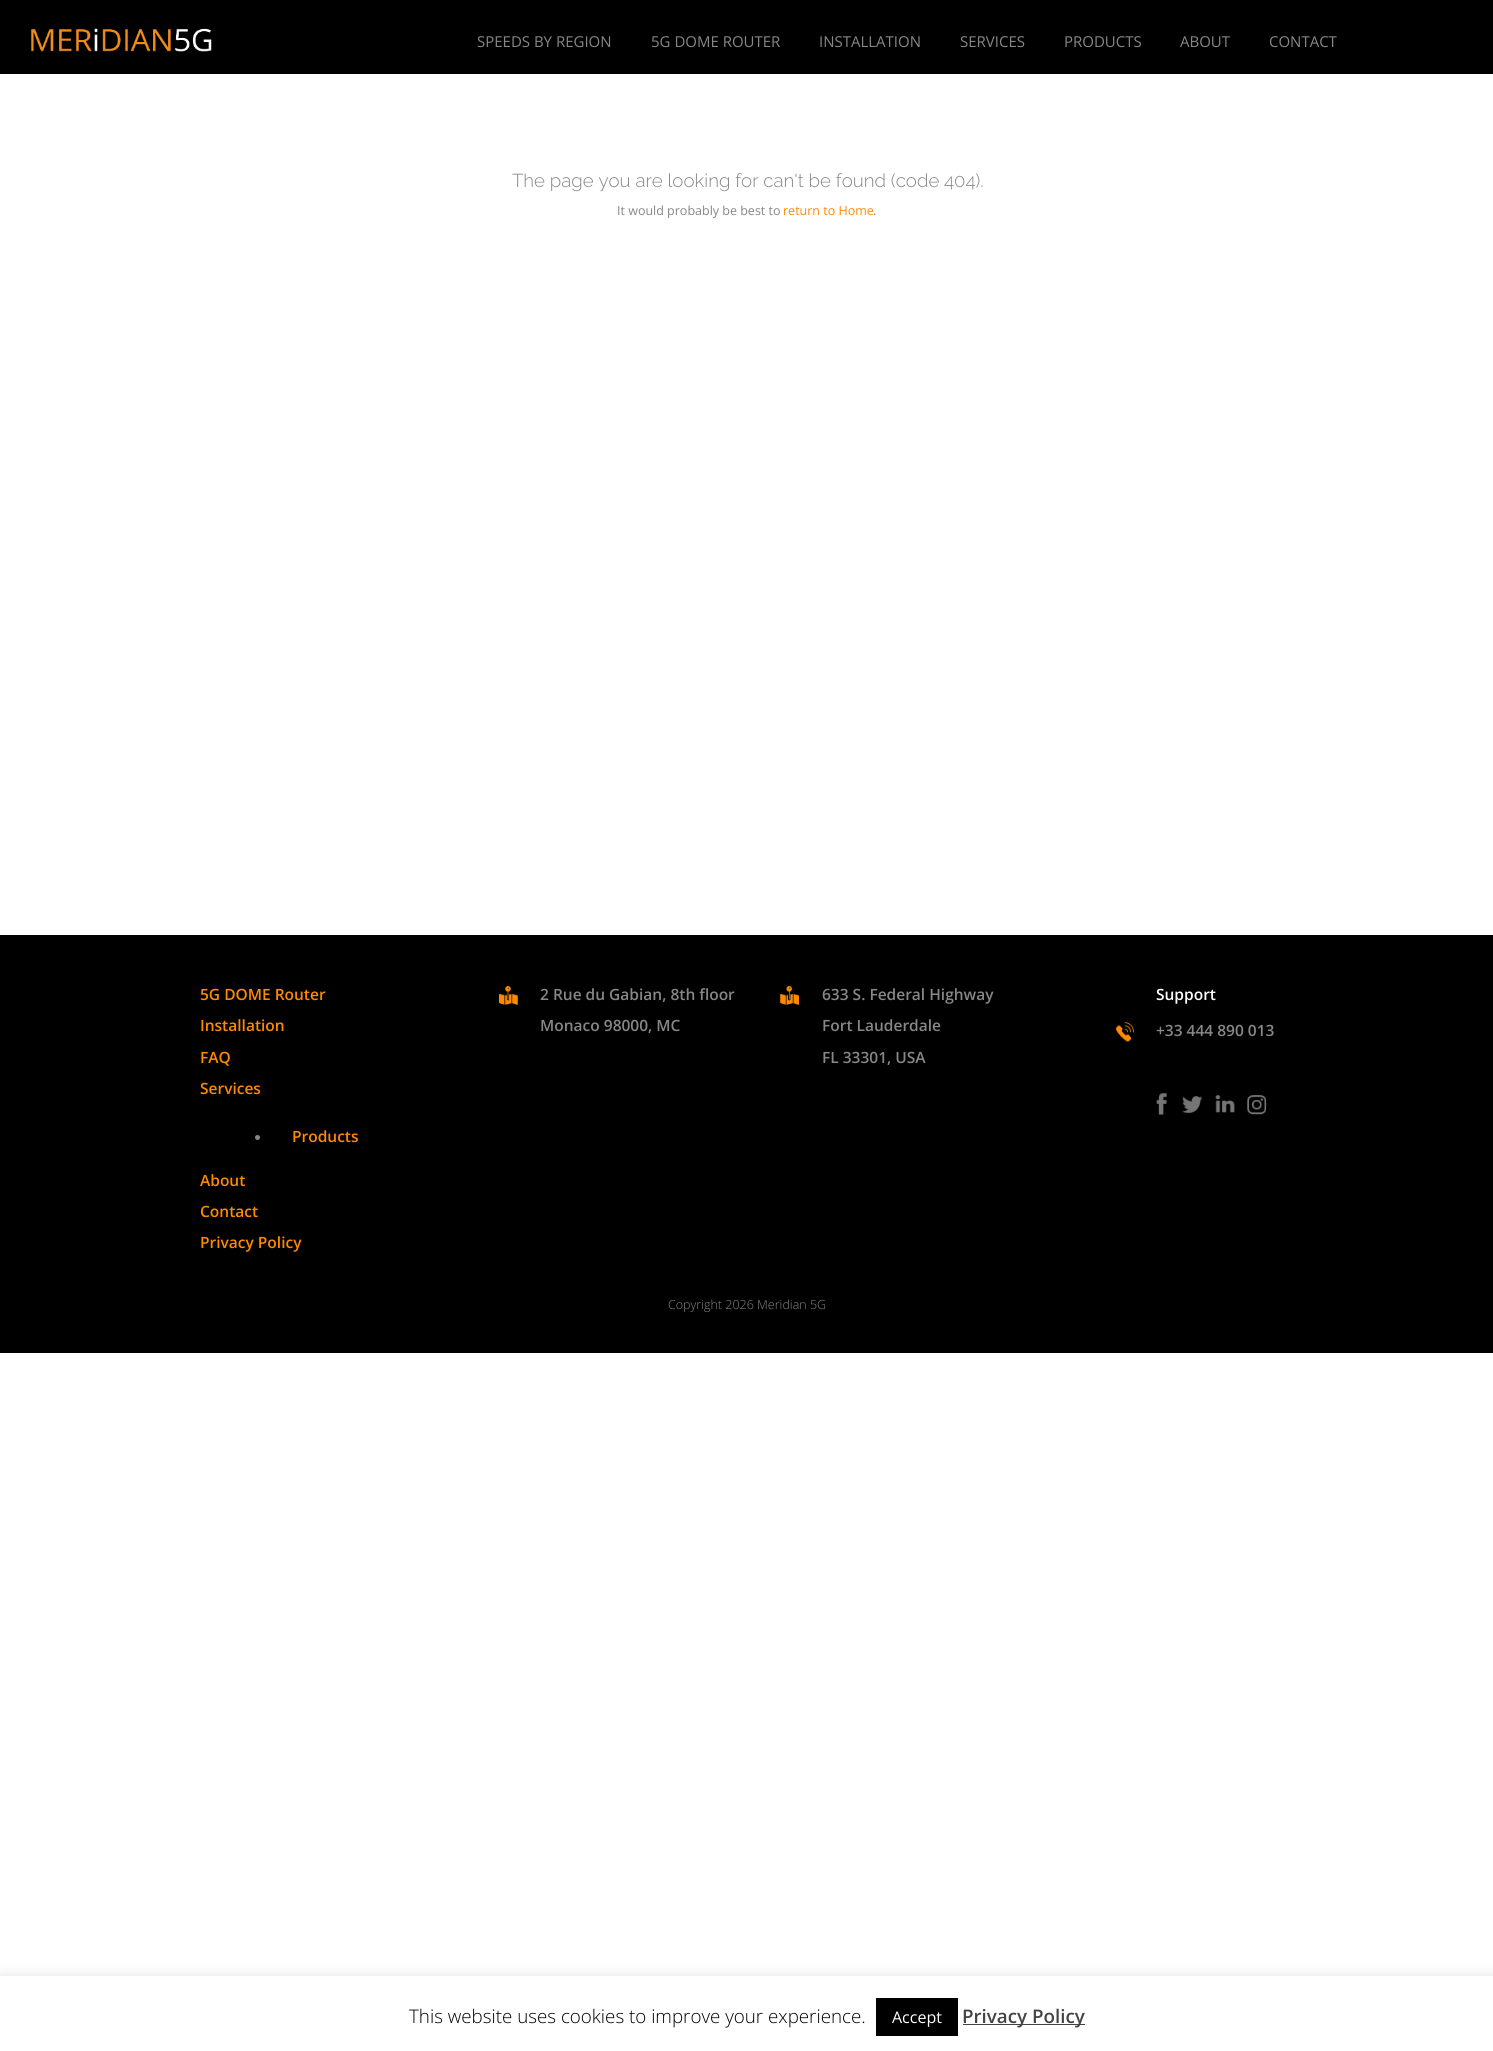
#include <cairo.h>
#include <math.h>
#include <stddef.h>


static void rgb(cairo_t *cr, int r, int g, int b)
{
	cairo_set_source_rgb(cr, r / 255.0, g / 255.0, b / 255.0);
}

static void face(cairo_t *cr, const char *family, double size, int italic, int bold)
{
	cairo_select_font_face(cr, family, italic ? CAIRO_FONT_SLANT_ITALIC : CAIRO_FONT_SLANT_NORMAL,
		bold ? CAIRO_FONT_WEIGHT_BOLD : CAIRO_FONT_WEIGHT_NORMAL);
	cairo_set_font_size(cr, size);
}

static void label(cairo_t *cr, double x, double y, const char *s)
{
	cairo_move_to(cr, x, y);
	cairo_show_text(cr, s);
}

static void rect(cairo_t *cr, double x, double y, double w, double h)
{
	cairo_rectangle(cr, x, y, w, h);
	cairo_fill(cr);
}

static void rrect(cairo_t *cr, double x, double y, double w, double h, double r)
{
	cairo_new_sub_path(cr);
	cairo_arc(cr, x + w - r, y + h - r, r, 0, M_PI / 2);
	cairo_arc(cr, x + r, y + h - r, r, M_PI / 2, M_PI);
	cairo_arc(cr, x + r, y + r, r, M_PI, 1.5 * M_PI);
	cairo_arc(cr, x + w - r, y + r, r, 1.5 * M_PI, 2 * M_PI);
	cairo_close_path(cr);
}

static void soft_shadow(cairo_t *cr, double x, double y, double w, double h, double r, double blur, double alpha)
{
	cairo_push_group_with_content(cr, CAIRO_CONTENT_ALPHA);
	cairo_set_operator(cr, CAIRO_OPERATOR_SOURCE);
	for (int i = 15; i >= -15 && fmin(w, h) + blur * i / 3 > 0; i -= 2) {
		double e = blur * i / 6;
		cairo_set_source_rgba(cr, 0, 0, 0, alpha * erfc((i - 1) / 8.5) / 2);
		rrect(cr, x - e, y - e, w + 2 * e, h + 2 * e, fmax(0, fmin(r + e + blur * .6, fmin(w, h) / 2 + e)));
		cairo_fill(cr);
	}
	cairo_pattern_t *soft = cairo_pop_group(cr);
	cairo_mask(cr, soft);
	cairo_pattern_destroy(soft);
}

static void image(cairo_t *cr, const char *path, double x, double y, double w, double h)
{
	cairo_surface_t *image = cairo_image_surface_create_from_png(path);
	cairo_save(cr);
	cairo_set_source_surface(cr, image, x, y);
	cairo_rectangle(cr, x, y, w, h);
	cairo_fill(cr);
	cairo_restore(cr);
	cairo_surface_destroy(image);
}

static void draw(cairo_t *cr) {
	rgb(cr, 255, 255, 255);
	cairo_paint(cr);
	rgb(cr, 0, 0, 0);
	rect(cr, 0, 0, 1493, 74);
	image(cr, "image0.png", 30, 28, 182, 24);
	face(cr, "Open Sans", 15, 0, 0);
	rgb(cr, 135, 135, 135);
	label(cr, 477, 47, "SPEEDS BY REGION");
	label(cr, 651, 47, "5G DOME ROUTER");
	label(cr, 819, 47, "INSTALLATION");
	label(cr, 960, 47, "SERVICES");
	label(cr, 1064, 47, "PRODUCTS");
	label(cr, 1180, 47, "ABOUT");
	label(cr, 1269, 47, "CONTACT");
	face(cr, "Raleway Light", 18.7, 0, 0);
	label(cr, 512, 187, "The page you are looking for can't be found (code 404).");
	face(cr, "Open Sans", 12.5, 0, 0);
	label(cr, 617, 215, "It would probably be best to");
	rgb(cr, 255, 138, 0);
	label(cr, 783, 215, "return to Home");
	rgb(cr, 135, 135, 135);
	label(cr, 873, 215, ".");
	rgb(cr, 0, 0, 0);
	rect(cr, 0, 935, 1493, 418);
	face(cr, "Open Sans SemiBold", 15.5, 0, 0);
	rgb(cr, 255, 138, 0);
	label(cr, 200, 1000, "5G DOME Router");
	label(cr, 200, 1031, "Installation");
	label(cr, 200, 1063, "FAQ");
	label(cr, 200, 1094, "Services");
	rgb(cr, 135, 135, 135);
	cairo_new_path(cr);
	cairo_arc(cr, 257.5, 1137.5, 2.5, 0, 2 * M_PI);
	cairo_fill(cr);
	rgb(cr, 255, 138, 0);
	label(cr, 292, 1142, "Products");
	label(cr, 200, 1186, "About");
	label(cr, 200, 1217, "Contact");
	label(cr, 200, 1248, "Privacy Policy");
	image(cr, "image1.png", 499, 986, 19, 19);
	rgb(cr, 135, 135, 135);
	label(cr, 540, 1000, "2 Rue du Gabian, 8th floor");
	label(cr, 540, 1031, "Monaco 98000, MC");
	image(cr, "image2.png", 780, 986, 19, 19);
	label(cr, 822, 1000, "633 S. Federal Highway");
	label(cr, 822, 1031, "Fort Lauderdale");
	label(cr, 822, 1063, "FL 33301, USA");
	rgb(cr, 255, 255, 255);
	label(cr, 1156, 1000, "Support");
	image(cr, "image3.png", 1116, 1022, 18, 20);
	rgb(cr, 135, 135, 135);
	label(cr, 1156, 1036, "+33 444 890 013");
	image(cr, "image4.png", 1156, 1092, 11, 23);
	image(cr, "image5.png", 1182, 1096, 21, 18);
	image(cr, "image6.png", 1215, 1095, 20, 18);
	image(cr, "image7.png", 1246, 1095, 21, 20);
	face(cr, "Open Sans Light", 12.5, 0, 0);
	label(cr, 668, 1309, "Copyright 2026 Meridian 5G");
	rgb(cr, 172, 171, 171);
	soft_shadow(cr, 0, 1975, 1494, 75, 0, 6, 0.3);
	rgb(cr, 255, 255, 255);
	rect(cr, 0, 1976, 1493, 75);
	face(cr, "Open Sans Light", 18.75, 0, 0);
	rgb(cr, 0, 0, 0);
	label(cr, 409, 2023, "This website uses cookies to improve your experience.");
	rect(cr, 876, 1998, 82, 38);
	face(cr, "Open Sans", 16, 0, 0);
	rgb(cr, 255, 255, 255);
	label(cr, 892, 2023, "Accept");
	rgb(cr, 68, 68, 68);
	rect(cr, 963, 2024, 122, 1);
	face(cr, "Open Sans SemiBold", 18.75, 0, 0);
	label(cr, 962, 2023, "Privacy Policy");
}

int main(void) {
	cairo_surface_t *surface = cairo_image_surface_create(CAIRO_FORMAT_RGB24, 1493, 2051);
	cairo_t *cr = cairo_create(surface);
	cairo_font_options_t *options = cairo_font_options_create();
	cairo_font_options_set_hint_metrics(options, CAIRO_HINT_METRICS_OFF);
	cairo_font_options_set_hint_style(options, CAIRO_HINT_STYLE_NONE);
	cairo_set_font_options(cr, options);
	cairo_set_miter_limit(cr, 4);
	draw(cr);
	cairo_surface_write_to_png(surface, "render.png");
	cairo_font_options_destroy(options);
	cairo_destroy(cr);
	cairo_surface_destroy(surface);
	return 0;
}
